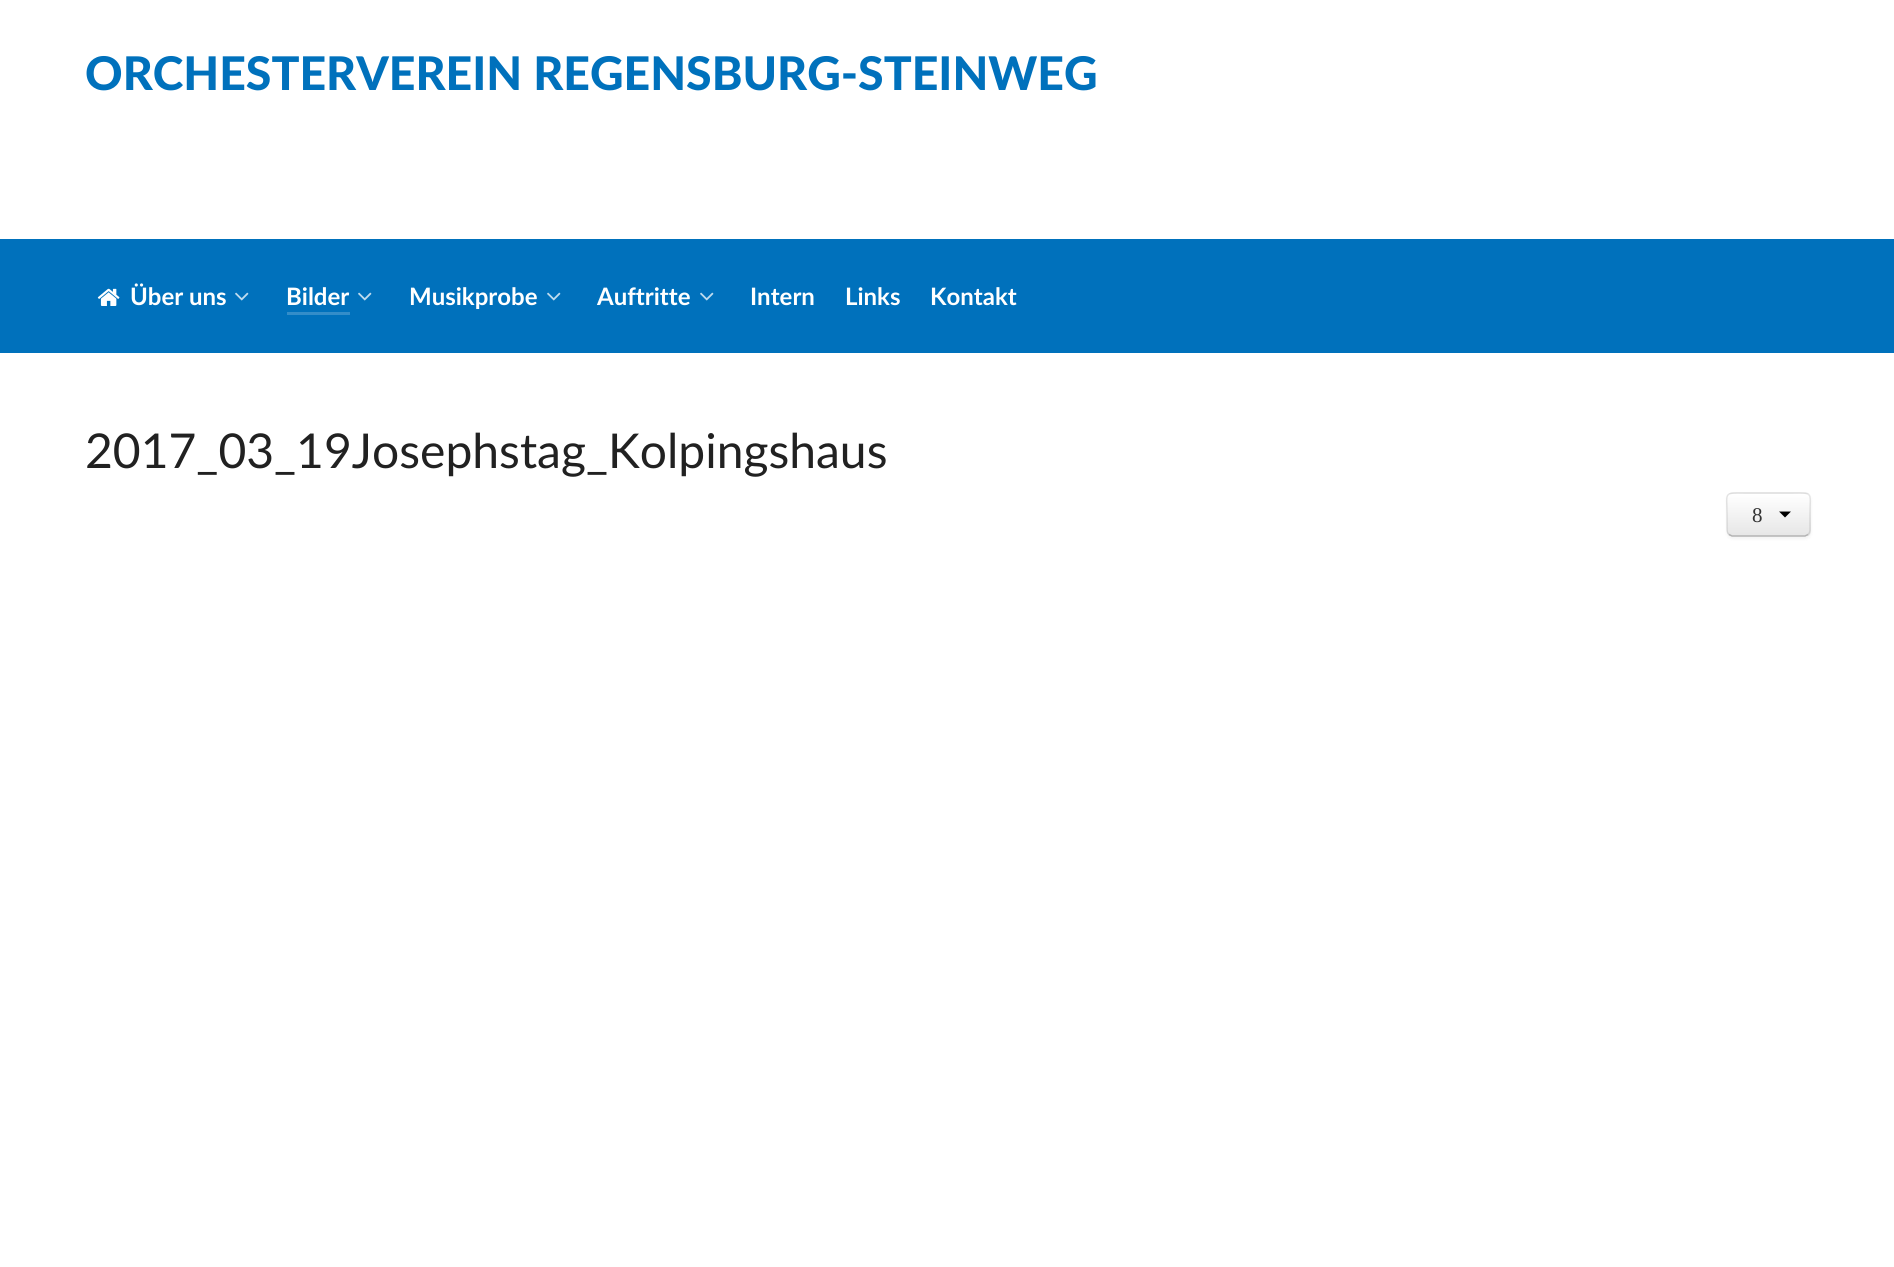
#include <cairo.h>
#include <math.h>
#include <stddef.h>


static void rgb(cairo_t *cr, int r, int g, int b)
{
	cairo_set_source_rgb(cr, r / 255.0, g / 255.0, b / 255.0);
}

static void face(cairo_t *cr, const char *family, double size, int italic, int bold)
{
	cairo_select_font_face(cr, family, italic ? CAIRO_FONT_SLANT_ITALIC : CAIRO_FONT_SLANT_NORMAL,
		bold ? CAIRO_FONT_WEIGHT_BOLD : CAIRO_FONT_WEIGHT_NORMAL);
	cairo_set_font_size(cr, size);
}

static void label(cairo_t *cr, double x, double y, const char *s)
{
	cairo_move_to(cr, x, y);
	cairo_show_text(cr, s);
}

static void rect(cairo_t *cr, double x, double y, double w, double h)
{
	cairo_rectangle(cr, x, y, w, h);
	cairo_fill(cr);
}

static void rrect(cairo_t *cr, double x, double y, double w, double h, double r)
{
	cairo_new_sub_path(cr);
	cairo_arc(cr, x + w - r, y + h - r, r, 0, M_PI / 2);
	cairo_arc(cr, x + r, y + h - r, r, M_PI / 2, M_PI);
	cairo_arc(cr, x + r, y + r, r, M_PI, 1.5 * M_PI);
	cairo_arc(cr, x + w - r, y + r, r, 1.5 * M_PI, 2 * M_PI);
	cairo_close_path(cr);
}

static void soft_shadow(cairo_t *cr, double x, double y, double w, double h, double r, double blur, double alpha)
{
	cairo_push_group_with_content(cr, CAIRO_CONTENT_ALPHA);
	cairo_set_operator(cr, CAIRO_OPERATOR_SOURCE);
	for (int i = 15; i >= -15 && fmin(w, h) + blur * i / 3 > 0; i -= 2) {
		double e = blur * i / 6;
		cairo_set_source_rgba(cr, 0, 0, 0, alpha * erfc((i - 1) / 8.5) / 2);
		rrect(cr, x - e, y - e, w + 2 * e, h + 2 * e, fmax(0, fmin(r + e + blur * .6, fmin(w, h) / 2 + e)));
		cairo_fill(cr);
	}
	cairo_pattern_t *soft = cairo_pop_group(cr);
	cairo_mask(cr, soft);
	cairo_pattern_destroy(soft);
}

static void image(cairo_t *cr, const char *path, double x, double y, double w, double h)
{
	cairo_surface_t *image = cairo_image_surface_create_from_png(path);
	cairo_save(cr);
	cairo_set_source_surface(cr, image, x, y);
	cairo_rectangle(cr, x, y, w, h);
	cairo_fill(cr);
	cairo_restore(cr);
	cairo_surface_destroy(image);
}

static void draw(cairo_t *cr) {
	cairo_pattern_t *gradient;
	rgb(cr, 255, 255, 255);
	cairo_paint(cr);
	face(cr, "Lato Black", 46.4, 0, 0);
	rgb(cr, 0, 113, 188);
	label(cr, 85, 90, "ORCHESTERVEREIN REGENSBURG-STEINWEG");
	rect(cr, 0, 239, 1894, 114);
	image(cr, "image0.png", 97, 288, 23, 18);
	face(cr, "Lato", 24, 0, 1);
	rgb(cr, 255, 255, 255);
	label(cr, 130, 305, "Über uns");
	image(cr, "image1.png", 235, 292, 14, 9);
	rgb(cr, 51, 141, 201);
	cairo_new_path(cr);
	cairo_move_to(cr, 287, 312);
	cairo_line_to(cr, 287, 315);
	cairo_line_to(cr, 350, 315);
	cairo_line_to(cr, 350, 284);
	cairo_line_to(cr, 350, 312);
	cairo_close_path(cr);
	cairo_fill(cr);
	rgb(cr, 255, 255, 255);
	label(cr, 286, 305, "Bilder");
	image(cr, "image1.png", 358, 292, 14, 9);
	label(cr, 409, 305, "Musikprobe");
	image(cr, "image1.png", 547, 292, 14, 9);
	label(cr, 597, 305, "Auftritte");
	image(cr, "image1.png", 700, 292, 14, 9);
	label(cr, 750, 305, "Intern");
	label(cr, 845, 305, "Links");
	label(cr, 930, 305, "Kontakt");
	face(cr, "Lato", 48, 0, 0);
	rgb(cr, 33, 33, 33);
	label(cr, 85, 468, "2017_03_19Josephstag_Kolpingshaus");
	rgb(cr, 0, 0, 0);
	soft_shadow(cr, 1727, 494, 84, 45, 6, 1.5, 0.05);
	rgb(cr, 245, 245, 245);
	rrect(cr, 1727, 492, 84, 45, 6);
	cairo_fill(cr);
	cairo_save(cr);
	rrect(cr, 1727, 492, 84, 45, 6);
	cairo_clip(cr);
	gradient = cairo_pattern_create_linear(1769, 494, 1769, 536);
	cairo_pattern_add_color_stop_rgba(gradient, 0, 1, 1, 1, 1);
	cairo_pattern_add_color_stop_rgba(gradient, 1, 0.902, 0.902, 0.902, 1);
	cairo_set_source(cr, gradient);
	cairo_pattern_destroy(gradient);
	rect(cr, 1727, 494, 84, 42);
	cairo_restore(cr);
	rgb(cr, 255, 255, 255);
	cairo_new_path(cr);
	cairo_move_to(cr, 1732, 495);
	cairo_line_to(cr, 1804, 495);
	cairo_curve_to(cr, 1807, 495, 1809, 497, 1809, 500);
	cairo_curve_to(cr, 1809, 491, 1798, 494, 1792, 494);
	cairo_line_to(cr, 1745, 494);
	cairo_curve_to(cr, 1739, 494, 1728, 491, 1728, 500);
	cairo_curve_to(cr, 1728, 497, 1730, 495, 1732, 495);
	cairo_close_path(cr);
	cairo_fill(cr);
	cairo_new_path(cr);
	cairo_move_to(cr, 1808, 534.5);
	cairo_line_to(cr, 1805, 536);
	cairo_line_to(cr, 1732, 536);
	cairo_line_to(cr, 1729, 534.5);
	rgb(cr, 179, 179, 179);
	cairo_set_line_width(cr, 1.5);
	cairo_stroke(cr);
	cairo_new_path(cr);
	cairo_move_to(cr, 1729, 534.5);
	cairo_curve_to(cr, 1726.5, 532.5, 1727, 528.5, 1727, 525.5);
	cairo_line_to(cr, 1727, 514.5);
	cairo_curve_to(cr, 1727, 492, 1723, 493, 1744.5, 493);
	cairo_line_to(cr, 1792.5, 493);
	cairo_curve_to(cr, 1814, 493, 1810, 492, 1810, 514.5);
	cairo_line_to(cr, 1810, 525.5);
	cairo_curve_to(cr, 1810, 528.5, 1810.5, 532.5, 1808, 534.5);
	cairo_set_source_rgba(cr, 0, 0, 0, 0.1);
	cairo_stroke(cr);
	face(cr, "Liberation Serif", 21, 0, 0);
	rgb(cr, 51, 51, 51);
	label(cr, 1752, 522, "8");
	rgb(cr, 0, 0, 0);
	cairo_new_path(cr);
	cairo_move_to(cr, 1779, 511.5);
	cairo_line_to(cr, 1791, 511.5);
	cairo_line_to(cr, 1785, 517.5);
	cairo_close_path(cr);
	cairo_fill(cr);
}

int main(void) {
	cairo_surface_t *surface = cairo_image_surface_create(CAIRO_FORMAT_RGB24, 1894, 1267);
	cairo_t *cr = cairo_create(surface);
	cairo_font_options_t *options = cairo_font_options_create();
	cairo_font_options_set_hint_metrics(options, CAIRO_HINT_METRICS_OFF);
	cairo_font_options_set_hint_style(options, CAIRO_HINT_STYLE_NONE);
	cairo_set_font_options(cr, options);
	cairo_set_miter_limit(cr, 4);
	draw(cr);
	cairo_surface_write_to_png(surface, "render.png");
	cairo_font_options_destroy(options);
	cairo_destroy(cr);
	cairo_surface_destroy(surface);
	return 0;
}
